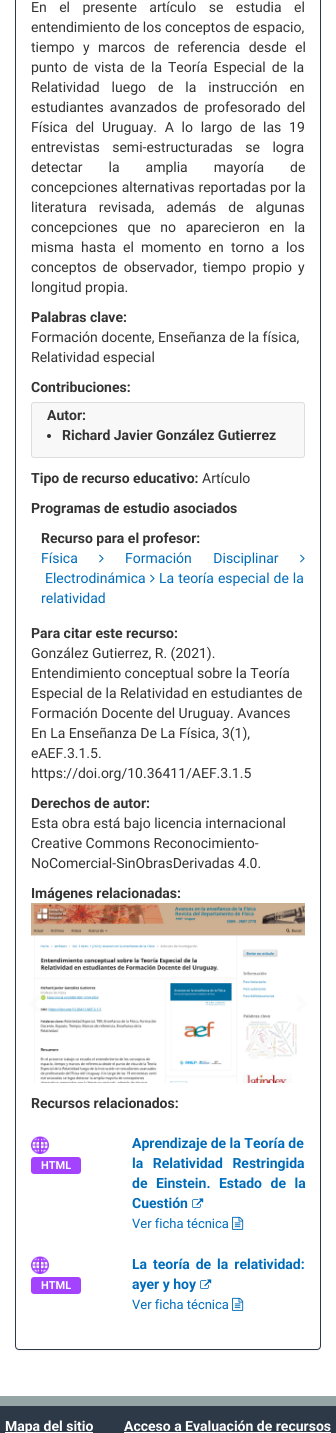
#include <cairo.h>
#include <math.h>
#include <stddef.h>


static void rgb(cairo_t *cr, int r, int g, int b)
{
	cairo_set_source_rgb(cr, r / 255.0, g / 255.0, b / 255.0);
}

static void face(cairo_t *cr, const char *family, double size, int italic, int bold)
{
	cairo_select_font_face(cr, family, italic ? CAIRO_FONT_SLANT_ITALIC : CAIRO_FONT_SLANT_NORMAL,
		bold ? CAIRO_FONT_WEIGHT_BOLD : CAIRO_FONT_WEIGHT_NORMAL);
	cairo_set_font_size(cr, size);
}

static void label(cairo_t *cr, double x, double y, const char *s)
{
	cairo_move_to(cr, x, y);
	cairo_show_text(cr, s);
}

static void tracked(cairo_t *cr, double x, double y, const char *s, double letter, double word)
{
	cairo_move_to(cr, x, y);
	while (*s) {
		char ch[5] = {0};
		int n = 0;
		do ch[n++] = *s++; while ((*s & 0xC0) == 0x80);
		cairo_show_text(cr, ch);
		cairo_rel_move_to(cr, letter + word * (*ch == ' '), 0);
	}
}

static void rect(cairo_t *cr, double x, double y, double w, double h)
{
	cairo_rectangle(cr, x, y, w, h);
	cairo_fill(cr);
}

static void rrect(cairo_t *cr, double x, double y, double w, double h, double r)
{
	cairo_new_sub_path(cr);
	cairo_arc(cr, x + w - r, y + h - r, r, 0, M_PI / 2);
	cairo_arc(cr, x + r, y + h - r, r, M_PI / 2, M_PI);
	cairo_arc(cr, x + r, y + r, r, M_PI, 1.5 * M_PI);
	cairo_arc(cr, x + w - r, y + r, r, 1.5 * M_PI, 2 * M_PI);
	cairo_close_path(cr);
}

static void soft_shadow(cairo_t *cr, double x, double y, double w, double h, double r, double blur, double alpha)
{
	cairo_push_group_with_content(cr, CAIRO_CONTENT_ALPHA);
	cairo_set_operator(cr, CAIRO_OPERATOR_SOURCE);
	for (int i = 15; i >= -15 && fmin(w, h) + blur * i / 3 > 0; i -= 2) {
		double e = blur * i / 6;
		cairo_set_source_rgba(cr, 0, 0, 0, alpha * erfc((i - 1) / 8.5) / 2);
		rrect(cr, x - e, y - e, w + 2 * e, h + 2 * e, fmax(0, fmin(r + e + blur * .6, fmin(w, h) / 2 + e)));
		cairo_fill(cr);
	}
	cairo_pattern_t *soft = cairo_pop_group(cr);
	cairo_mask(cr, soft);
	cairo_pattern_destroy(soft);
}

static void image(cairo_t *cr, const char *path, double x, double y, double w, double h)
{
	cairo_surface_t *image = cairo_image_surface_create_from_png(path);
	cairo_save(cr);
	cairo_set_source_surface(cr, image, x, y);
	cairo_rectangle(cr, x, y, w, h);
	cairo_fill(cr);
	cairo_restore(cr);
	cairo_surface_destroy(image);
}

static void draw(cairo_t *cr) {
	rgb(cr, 255, 255, 255);
	cairo_paint(cr);
	rgb(cr, 0, 0, 0);
	soft_shadow(cr, 15, -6, 306, 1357, 4, 0.5, 0.05);
	rgb(cr, 255, 255, 255);
	rrect(cr, 15.5, -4.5, 305, 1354, 3.5);
	cairo_fill_preserve(cr);
	rgb(cr, 46, 57, 72);
	cairo_set_line_width(cr, 1);
	cairo_stroke(cr);
	face(cr, "Roboto", 14, 0, 0);
	rgb(cr, 51, 51, 51);
	tracked(cr, 31, 12, "En el presente artículo se estudia el", 0, 9);
	label(cr, 31, 32, "entendimiento de los conceptos de espacio,");
	tracked(cr, 31, 52, "tiempo y marcos de referencia desde el", 0, 5);
	tracked(cr, 31, 72, "punto de vista de la Teoría Especial de la", 0, 2.5);
	tracked(cr, 31, 92, "Relatividad luego de la instrucción en", 0, 8.5);
	tracked(cr, 31, 112, "estudiantes avanzados de profesorado del", 0, 2.5);
	tracked(cr, 31, 132, "Física del Uruguay. A lo largo de las 19", 0, 4.25);
	tracked(cr, 31, 152, "entrevistas semi-estructuradas se logra", 0, 9);
	tracked(cr, 31, 172, "detectar la amplia mayoría de", 0, 22.5);
	tracked(cr, 31, 192, "concepciones alternativas reportadas por la", 0, 0.5);
	tracked(cr, 31, 212, "literatura revisada, además de algunas", 0, 8.5);
	tracked(cr, 31, 232, "concepciones que no aparecieron en la", 0, 6.25);
	tracked(cr, 31, 252, "misma hasta el momento en torno a los", 0, 3.75);
	tracked(cr, 31, 272, "conceptos de observador, tiempo propio y", 0, 2.5);
	label(cr, 31, 292, "longitud propia.");
	face(cr, "Roboto", 14, 0, 1);
	label(cr, 31, 322, "Palabras clave:");
	face(cr, "Roboto", 14, 0, 0);
	label(cr, 31, 342, "Formación docente, Enseñanza de la física,");
	label(cr, 31, 362, "Relatividad especial");
	face(cr, "Roboto", 14, 0, 1);
	label(cr, 31, 392, "Contribuciones:");
	rgb(cr, 248, 248, 248);
	rrect(cr, 31.5, 402.5, 273, 55, 2.5);
	cairo_fill_preserve(cr);
	rgb(cr, 221, 221, 221);
	cairo_stroke(cr);
	rgb(cr, 51, 51, 51);
	label(cr, 47, 420, "Autor:");
	cairo_new_path(cr);
	cairo_arc(cr, 49, 436, 2, 0, 2 * M_PI);
	cairo_fill(cr);
	label(cr, 62, 440, "Richard Javier González Gutierrez");
	label(cr, 31, 483, "Tipo de recurso educativo:");
	face(cr, "Roboto", 14, 0, 0);
	label(cr, 202, 483, "Artículo");
	face(cr, "Roboto", 14, 0, 1);
	label(cr, 31, 513, "Programas de estudio asociados");
	label(cr, 41, 543, "Recurso para el profesor:");
	face(cr, "Roboto", 14, 0, 0);
	rgb(cr, 0, 108, 186);
	label(cr, 41, 563, "Física");
	image(cr, "image0.png", 99, 554, 5, 9);
	tracked(cr, 125, 563, "Formación Disciplinar", 0, 18);
	image(cr, "image0.png", 300, 554, 5, 9);
	label(cr, 45, 583, "Electrodinámica");
	image(cr, "image0.png", 150, 574, 5, 9);
	tracked(cr, 159, 583, "La teoría especial de la", 0, 0.5);
	label(cr, 41, 603, "relatividad");
	face(cr, "Roboto", 14, 0, 1);
	rgb(cr, 51, 51, 51);
	label(cr, 31, 638, "Para citar este recurso:");
	face(cr, "Roboto", 14, 0, 0);
	label(cr, 31, 658, "González Gutierrez, R. (2021).");
	label(cr, 31, 678, "Entendimiento conceptual sobre la Teoría");
	label(cr, 31, 698, "Especial de la Relatividad en estudiantes de");
	label(cr, 31, 718, "Formación Docente del Uruguay. Avances");
	label(cr, 31, 738, "En La Enseñanza De La Física, 3(1),");
	label(cr, 31, 758, "eAEF.3.1.5.");
	label(cr, 31, 778, "https://doi.org/10.36411/AEF.3.1.5");
	face(cr, "Roboto", 14, 0, 1);
	label(cr, 31, 808, "Derechos de autor:");
	face(cr, "Roboto", 14, 0, 0);
	label(cr, 31, 828, "Esta obra está bajo licencia internacional");
	label(cr, 31, 848, "Creative Commons Reconocimiento-");
	label(cr, 31, 868, "NoComercial-SinObrasDerivadas 4.0.");
	face(cr, "Roboto", 14, 0, 1);
	label(cr, 31, 898, "Imágenes relacionadas:");
	image(cr, "image1.png", 31, 903, 274, 180);
	cairo_set_source_rgba(cr, 0.973, 0.973, 0.973, 0.5);
	cairo_new_path(cr);
	cairo_move_to(cr, 41, 998);
	cairo_line_to(cr, 35, 1004);
	cairo_line_to(cr, 41, 1010);
	cairo_line_to(cr, 37.5, 1013);
	cairo_line_to(cr, 28.5, 1004);
	cairo_line_to(cr, 37.5, 994.5);
	cairo_close_path(cr);
	cairo_fill(cr);
	rgb(cr, 252, 252, 252);
	cairo_new_path(cr);
	cairo_move_to(cr, 307.5, 1004);
	cairo_line_to(cr, 298.5, 1013);
	cairo_line_to(cr, 295, 1010);
	cairo_line_to(cr, 301, 1004);
	cairo_line_to(cr, 295, 998);
	cairo_line_to(cr, 298.5, 994.5);
	cairo_close_path(cr);
	cairo_fill(cr);
	image(cr, "image2.png", 250, 1035, 24, 24);
	rgb(cr, 51, 51, 51);
	label(cr, 31, 1108, "Recursos relacionados:");
	image(cr, "image3.png", 31, 1136, 18, 18);
	rgb(cr, 163, 66, 255);
	rrect(cr, 31, 1157, 50, 17, 3);
	cairo_fill(cr);
	face(cr, "Roboto", 11, 0, 1);
	rgb(cr, 255, 255, 255);
	label(cr, 41, 1169, "HTML");
	face(cr, "Roboto", 14, 0, 1);
	rgb(cr, 0, 108, 186);
	label(cr, 132, 1148, "Aprendizaje de la Teoría de");
	tracked(cr, 132, 1168, "la Relatividad Restringida", 0, 6);
	tracked(cr, 132, 1188, "de Einstein. Estado de la", 0, 5);
	label(cr, 132, 1208, "Cuestión");
	image(cr, "image4.png", 192, 1198, 12, 10);
	face(cr, "Roboto", 13, 0, 0);
	label(cr, 132, 1228, "Ver ficha técnica");
	image(cr, "image5.png", 232, 1216, 12, 14);
	image(cr, "image3.png", 31, 1256, 18, 18);
	rgb(cr, 163, 66, 255);
	rrect(cr, 31, 1277, 50, 17, 3);
	cairo_fill(cr);
	face(cr, "Roboto", 11, 0, 1);
	rgb(cr, 255, 255, 255);
	label(cr, 41, 1289, "HTML");
	face(cr, "Roboto", 14, 0, 1);
	rgb(cr, 0, 108, 186);
	tracked(cr, 132, 1269, "La teoría de la relatividad:", 0, 2.5);
	label(cr, 132, 1289, "ayer y hoy");
	image(cr, "image4.png", 200, 1279, 12, 10);
	face(cr, "Roboto", 13, 0, 0);
	label(cr, 132, 1309, "Ver ficha técnica");
	image(cr, "image5.png", 232, 1297, 12, 14);
	rgb(cr, 46, 57, 72);
	rect(cr, 0, 1406, 336, 27);
	rgb(cr, 149, 165, 166);
	rect(cr, 0, 1396, 336, 10);
	rgb(cr, 255, 255, 255);
	rect(cr, 5, 1432, 88, 1);
	face(cr, "Roboto", 14, 0, 1);
	label(cr, 5, 1431, "Mapa del sitio");
	label(cr, 124, 1431, "Acceso a Evaluación de recursos");
	rect(cr, 124, 1432, 207, 1);
}

int main(void) {
	cairo_surface_t *surface = cairo_image_surface_create(CAIRO_FORMAT_RGB24, 336, 1433);
	cairo_t *cr = cairo_create(surface);
	cairo_font_options_t *options = cairo_font_options_create();
	cairo_font_options_set_hint_metrics(options, CAIRO_HINT_METRICS_OFF);
	cairo_font_options_set_hint_style(options, CAIRO_HINT_STYLE_NONE);
	cairo_set_font_options(cr, options);
	cairo_set_miter_limit(cr, 4);
	draw(cr);
	cairo_surface_write_to_png(surface, "render.png");
	cairo_font_options_destroy(options);
	cairo_destroy(cr);
	cairo_surface_destroy(surface);
	return 0;
}
